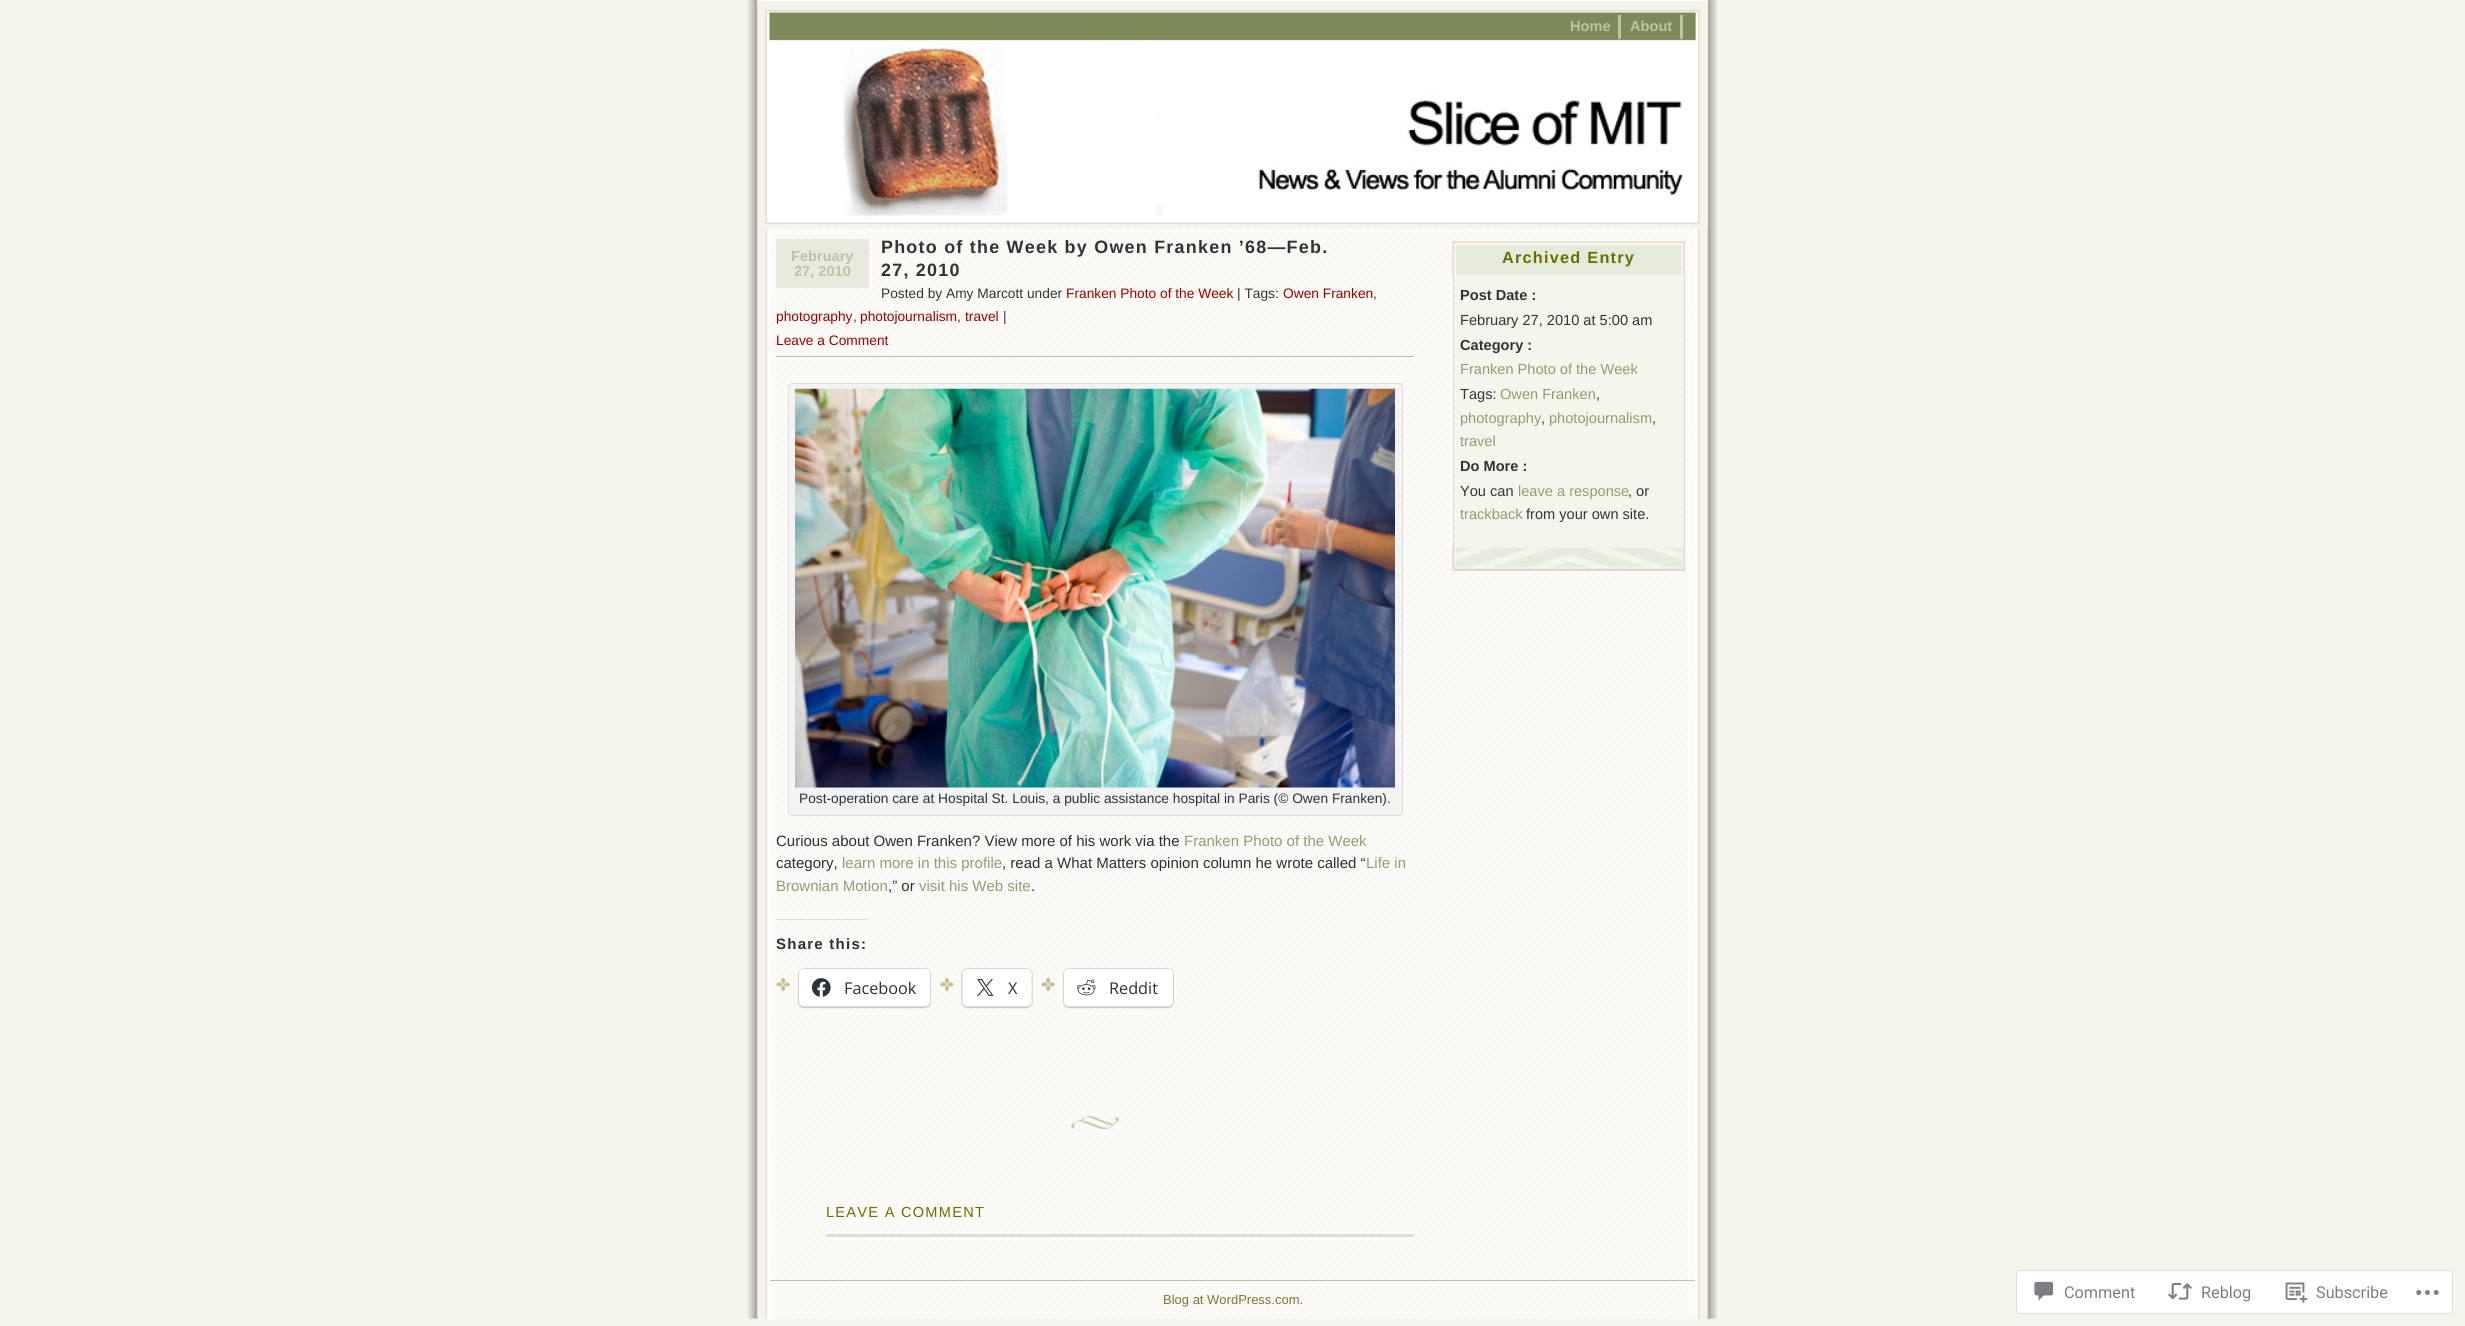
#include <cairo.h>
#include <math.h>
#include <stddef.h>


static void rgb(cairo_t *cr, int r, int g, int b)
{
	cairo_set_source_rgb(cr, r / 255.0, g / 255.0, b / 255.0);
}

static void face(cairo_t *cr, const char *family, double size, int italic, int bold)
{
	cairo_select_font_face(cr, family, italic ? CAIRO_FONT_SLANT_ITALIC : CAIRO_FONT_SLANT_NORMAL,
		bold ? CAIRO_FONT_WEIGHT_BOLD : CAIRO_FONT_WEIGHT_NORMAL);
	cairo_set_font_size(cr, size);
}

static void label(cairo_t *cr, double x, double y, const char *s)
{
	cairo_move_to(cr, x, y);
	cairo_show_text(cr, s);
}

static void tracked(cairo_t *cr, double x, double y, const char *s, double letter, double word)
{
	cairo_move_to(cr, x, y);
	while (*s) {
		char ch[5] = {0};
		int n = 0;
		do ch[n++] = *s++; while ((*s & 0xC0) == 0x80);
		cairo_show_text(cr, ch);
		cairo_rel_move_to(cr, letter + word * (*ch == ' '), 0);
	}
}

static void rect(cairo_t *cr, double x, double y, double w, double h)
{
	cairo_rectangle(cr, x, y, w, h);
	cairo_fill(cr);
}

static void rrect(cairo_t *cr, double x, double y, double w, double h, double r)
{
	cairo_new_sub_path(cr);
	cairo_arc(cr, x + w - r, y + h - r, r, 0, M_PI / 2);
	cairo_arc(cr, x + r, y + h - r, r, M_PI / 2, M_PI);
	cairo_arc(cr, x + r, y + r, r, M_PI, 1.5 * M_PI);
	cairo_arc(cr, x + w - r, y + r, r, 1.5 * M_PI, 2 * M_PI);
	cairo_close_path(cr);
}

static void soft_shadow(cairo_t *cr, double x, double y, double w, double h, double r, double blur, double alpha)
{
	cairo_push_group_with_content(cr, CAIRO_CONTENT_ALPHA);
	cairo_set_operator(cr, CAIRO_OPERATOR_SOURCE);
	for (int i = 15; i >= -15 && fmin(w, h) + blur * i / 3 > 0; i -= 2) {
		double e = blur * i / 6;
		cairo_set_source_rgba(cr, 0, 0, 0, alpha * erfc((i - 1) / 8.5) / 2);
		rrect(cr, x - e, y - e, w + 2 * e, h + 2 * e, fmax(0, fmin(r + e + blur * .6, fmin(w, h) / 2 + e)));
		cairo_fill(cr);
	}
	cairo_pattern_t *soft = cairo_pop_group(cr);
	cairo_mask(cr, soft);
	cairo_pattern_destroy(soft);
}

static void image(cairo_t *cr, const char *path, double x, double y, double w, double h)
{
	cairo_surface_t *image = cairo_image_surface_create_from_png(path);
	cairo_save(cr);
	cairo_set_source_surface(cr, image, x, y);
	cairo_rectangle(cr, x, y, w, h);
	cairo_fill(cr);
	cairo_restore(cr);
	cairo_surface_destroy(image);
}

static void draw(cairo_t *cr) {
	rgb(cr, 243, 246, 237);
	cairo_paint(cr);
	rgb(cr, 255, 255, 255);
	rect(cr, 748, 0, 970, 1319);
	image(cr, "image0.png", 747, 0, 971, 1319);
	rect(cr, 758, 0, 950, 229);
	image(cr, "image1.png", 757, 0, 951, 229);
	rgb(cr, 187, 196, 163);
	rect(cr, 1618, 15, 3, 24);
	face(cr, "Liberation Sans", 14.6, 0, 1);
	label(cr, 1570, 31, "Home");
	rect(cr, 1680, 15, 3, 24);
	label(cr, 1630, 31, "About");
	image(cr, "image2.png", 770, 41, 926, 178);
	image(cr, "image3.png", 770, 229, 925, 1090);
	face(cr, "Liberation Sans", 17.9, 0, 1);
	rgb(cr, 51, 51, 51);
	tracked(cr, 881, 253, "Photo of the Week by Owen Franken ’68—Feb.", 1.25, 0);
	tracked(cr, 881, 276, "27, 2010", 1.25, 0);
	face(cr, "Liberation Sans", 13.75, 0, 0);
	label(cr, 881, 298, "Posted by Amy Marcott under");
	rgb(cr, 153, 0, 0);
	label(cr, 1066, 298, "Franken Photo of the Week");
	rgb(cr, 51, 51, 51);
	label(cr, 1237, 298, "| Tags:");
	rgb(cr, 153, 0, 0);
	label(cr, 1283, 298, "Owen Franken");
	rgb(cr, 51, 51, 51);
	label(cr, 1373, 298, ",");
	rgb(cr, 153, 0, 0);
	label(cr, 776, 321, "photography");
	rgb(cr, 51, 51, 51);
	label(cr, 853, 321, ",");
	rgb(cr, 153, 0, 0);
	label(cr, 860, 321, "photojournalism");
	rgb(cr, 51, 51, 51);
	label(cr, 957, 321, ",");
	rgb(cr, 153, 0, 0);
	label(cr, 965, 321, "travel");
	rgb(cr, 51, 51, 51);
	label(cr, 1003, 321, "|");
	rgb(cr, 153, 0, 0);
	label(cr, 776, 345, "Leave a Comment");
	rgb(cr, 231, 235, 222);
	rect(cr, 776, 239, 93, 49);
	face(cr, "Liberation Sans", 14.6, 0, 1);
	rgb(cr, 187, 196, 163);
	label(cr, 791, 261, "February");
	label(cr, 794, 276, "27, 2010");
	rect(cr, 776, 356, 638, 1);
	rgb(cr, 243, 243, 243);
	rrect(cr, 788.5, 383.5, 614, 432, 3.5);
	cairo_fill_preserve(cr);
	rgb(cr, 221, 221, 221);
	cairo_set_line_width(cr, 1);
	cairo_stroke(cr);
	image(cr, "image4.png", 795, 388, 600, 400);
	face(cr, "Liberation Sans", 13.75, 0, 0);
	rgb(cr, 41, 48, 59);
	label(cr, 799, 803, "Post-operation care at Hospital St. Louis, a public assistance hospital in Paris (© Owen Franken).");
	face(cr, "Liberation Sans", 15, 0, 0);
	label(cr, 776, 846, "Curious about Owen Franken? View more of his work via the");
	rgb(cr, 144, 157, 115);
	label(cr, 1184, 846, "Franken Photo of the Week");
	rgb(cr, 41, 48, 59);
	label(cr, 776, 868, "category,");
	rgb(cr, 144, 157, 115);
	label(cr, 842, 868, "learn more in this profile");
	rgb(cr, 41, 48, 59);
	label(cr, 1002, 868, ", read a What Matters opinion column he wrote called “");
	rgb(cr, 144, 157, 115);
	label(cr, 1366, 868, "Life in");
	label(cr, 776, 891, "Brownian Motion");
	rgb(cr, 41, 48, 59);
	label(cr, 888, 891, ",” or");
	rgb(cr, 144, 157, 115);
	label(cr, 919, 891, "visit his Web site");
	rgb(cr, 41, 48, 59);
	label(cr, 1031, 891, ".");
	rgb(cr, 220, 220, 222);
	rect(cr, 776, 919, 92, 1);
	face(cr, "Liberation Sans", 15, 0, 1);
	rgb(cr, 41, 48, 59);
	tracked(cr, 776, 949, "Share this:", 1.25, 0);
	image(cr, "image5.png", 776, 977, 14, 15);
	rrect(cr, 798.5, 968.5, 132, 39, 5.5);
	cairo_set_source_rgba(cr, 0, 0, 0, 0.12);
	cairo_stroke(cr);
	rgb(cr, 0, 0, 0);
	soft_shadow(cr, 799, 970, 131, 38, 5, 1, 0.12);
	rgb(cr, 255, 255, 255);
	rrect(cr, 799, 969, 131, 37, 5);
	cairo_fill(cr);
	image(cr, "image6.png", 811, 978, 20, 19);
	face(cr, "Open Sans", 16.25, 0, 0);
	rgb(cr, 41, 48, 59);
	label(cr, 844, 994, "Facebook");
	image(cr, "image7.png", 940, 977, 14, 15);
	rrect(cr, 961.5, 968.5, 71, 39, 5.5);
	cairo_set_source_rgba(cr, 0, 0, 0, 0.12);
	cairo_stroke(cr);
	rgb(cr, 0, 0, 0);
	soft_shadow(cr, 963, 970, 68, 38, 5, 1, 0.12);
	rgb(cr, 255, 255, 255);
	rrect(cr, 963, 969, 68, 37, 5);
	cairo_fill(cr);
	image(cr, "image8.png", 977, 979, 17, 17);
	rgb(cr, 41, 48, 59);
	label(cr, 1008, 994, "X");
	image(cr, "image9.png", 1041, 977, 14, 15);
	rrect(cr, 1063.5, 968.5, 110, 39, 5.5);
	cairo_set_source_rgba(cr, 0, 0, 0, 0.12);
	cairo_stroke(cr);
	rgb(cr, 0, 0, 0);
	soft_shadow(cr, 1064, 970, 109, 38, 5, 1, 0.12);
	rgb(cr, 255, 255, 255);
	rrect(cr, 1064, 969, 109, 37, 5);
	cairo_fill(cr);
	image(cr, "image10.png", 1076, 979, 20, 17);
	rgb(cr, 41, 48, 59);
	label(cr, 1109, 994, "Reddit");
	image(cr, "image11.png", 1071, 1116, 48, 13);
	face(cr, "Liberation Sans", 14.6, 0, 0);
	rgb(cr, 103, 110, 4);
	tracked(cr, 826, 1217, "LEAVE A COMMENT", 1.25, 0);
	rgb(cr, 220, 220, 222);
	rect(cr, 826, 1234, 588, 3);
	image(cr, "image12.png", 1452, 241, 233, 34);
	face(cr, "Liberation Sans", 16.25, 0, 1);
	rgb(cr, 103, 110, 4);
	tracked(cr, 1502, 263, "Archived Entry", 1.25, 0);
	rgb(cr, 243, 246, 237);
	rect(cr, 1454, 275, 230, 272);
	image(cr, "image13.png", 1452, 546, 232, 24);
	rgb(cr, 225, 214, 198);
	rect(cr, 1684, 275, 1, 296);
	rect(cr, 1453, 570, 232, 1);
	rect(cr, 1453, 275, 1, 296);
	face(cr, "Liberation Sans", 14.6, 0, 1);
	rgb(cr, 51, 51, 51);
	label(cr, 1460, 300, "Post Date :");
	face(cr, "Liberation Sans", 14.6, 0, 0);
	label(cr, 1460, 325, "February 27, 2010 at 5:00 am");
	face(cr, "Liberation Sans", 14.6, 0, 1);
	label(cr, 1460, 350, "Category :");
	face(cr, "Liberation Sans", 14.6, 0, 0);
	rgb(cr, 144, 157, 115);
	label(cr, 1460, 374, "Franken Photo of the Week");
	rgb(cr, 51, 51, 51);
	label(cr, 1460, 399, "Tags:");
	rgb(cr, 144, 157, 115);
	label(cr, 1500, 399, "Owen Franken");
	rgb(cr, 51, 51, 51);
	label(cr, 1596, 399, ",");
	rgb(cr, 144, 157, 115);
	label(cr, 1460, 423, "photography");
	rgb(cr, 51, 51, 51);
	label(cr, 1541, 423, ",");
	rgb(cr, 144, 157, 115);
	label(cr, 1549, 423, "photojournalism");
	rgb(cr, 51, 51, 51);
	label(cr, 1652, 423, ",");
	rgb(cr, 144, 157, 115);
	label(cr, 1460, 446, "travel");
	face(cr, "Liberation Sans", 14.6, 0, 1);
	rgb(cr, 51, 51, 51);
	label(cr, 1460, 471, "Do More :");
	face(cr, "Liberation Sans", 14.6, 0, 0);
	label(cr, 1460, 496, "You can");
	rgb(cr, 144, 157, 115);
	label(cr, 1518, 496, "leave a response");
	rgb(cr, 51, 51, 51);
	label(cr, 1628, 496, ", or");
	rgb(cr, 144, 157, 115);
	label(cr, 1460, 519, "trackback");
	rgb(cr, 51, 51, 51);
	label(cr, 1526, 519, "from your own site.");
	rgb(cr, 187, 196, 163);
	rect(cr, 770, 1280, 925, 1);
	face(cr, "Liberation Sans", 13, 0, 0);
	rgb(cr, 122, 118, 54);
	label(cr, 1163, 1304, "Blog at WordPress.com.");
	rgb(cr, 255, 255, 255);
	rrect(cr, 2016.5, 1270.5, 436, 43, 3.5);
	cairo_fill_preserve(cr);
	rgb(cr, 220, 221, 222);
	cairo_stroke(cr);
	image(cr, "image14.png", 2034, 1281, 20, 20);
	face(cr, "Roboto", 16.25, 0, 0);
	rgb(cr, 122, 126, 132);
	label(cr, 2064, 1298, "Comment");
	image(cr, "image15.png", 2168, 1282, 24, 18);
	label(cr, 2201, 1298, "Reblog");
	image(cr, "image16.png", 2285, 1282, 23, 21);
	label(cr, 2316, 1298, "Subscribe");
	image(cr, "image17.png", 2416, 1290, 23, 5);
}

int main(void) {
	cairo_surface_t *surface = cairo_image_surface_create(CAIRO_FORMAT_RGB24, 2465, 1326);
	cairo_t *cr = cairo_create(surface);
	cairo_font_options_t *options = cairo_font_options_create();
	cairo_font_options_set_hint_metrics(options, CAIRO_HINT_METRICS_OFF);
	cairo_font_options_set_hint_style(options, CAIRO_HINT_STYLE_NONE);
	cairo_set_font_options(cr, options);
	cairo_set_miter_limit(cr, 4);
	draw(cr);
	cairo_surface_write_to_png(surface, "render.png");
	cairo_font_options_destroy(options);
	cairo_destroy(cr);
	cairo_surface_destroy(surface);
	return 0;
}
